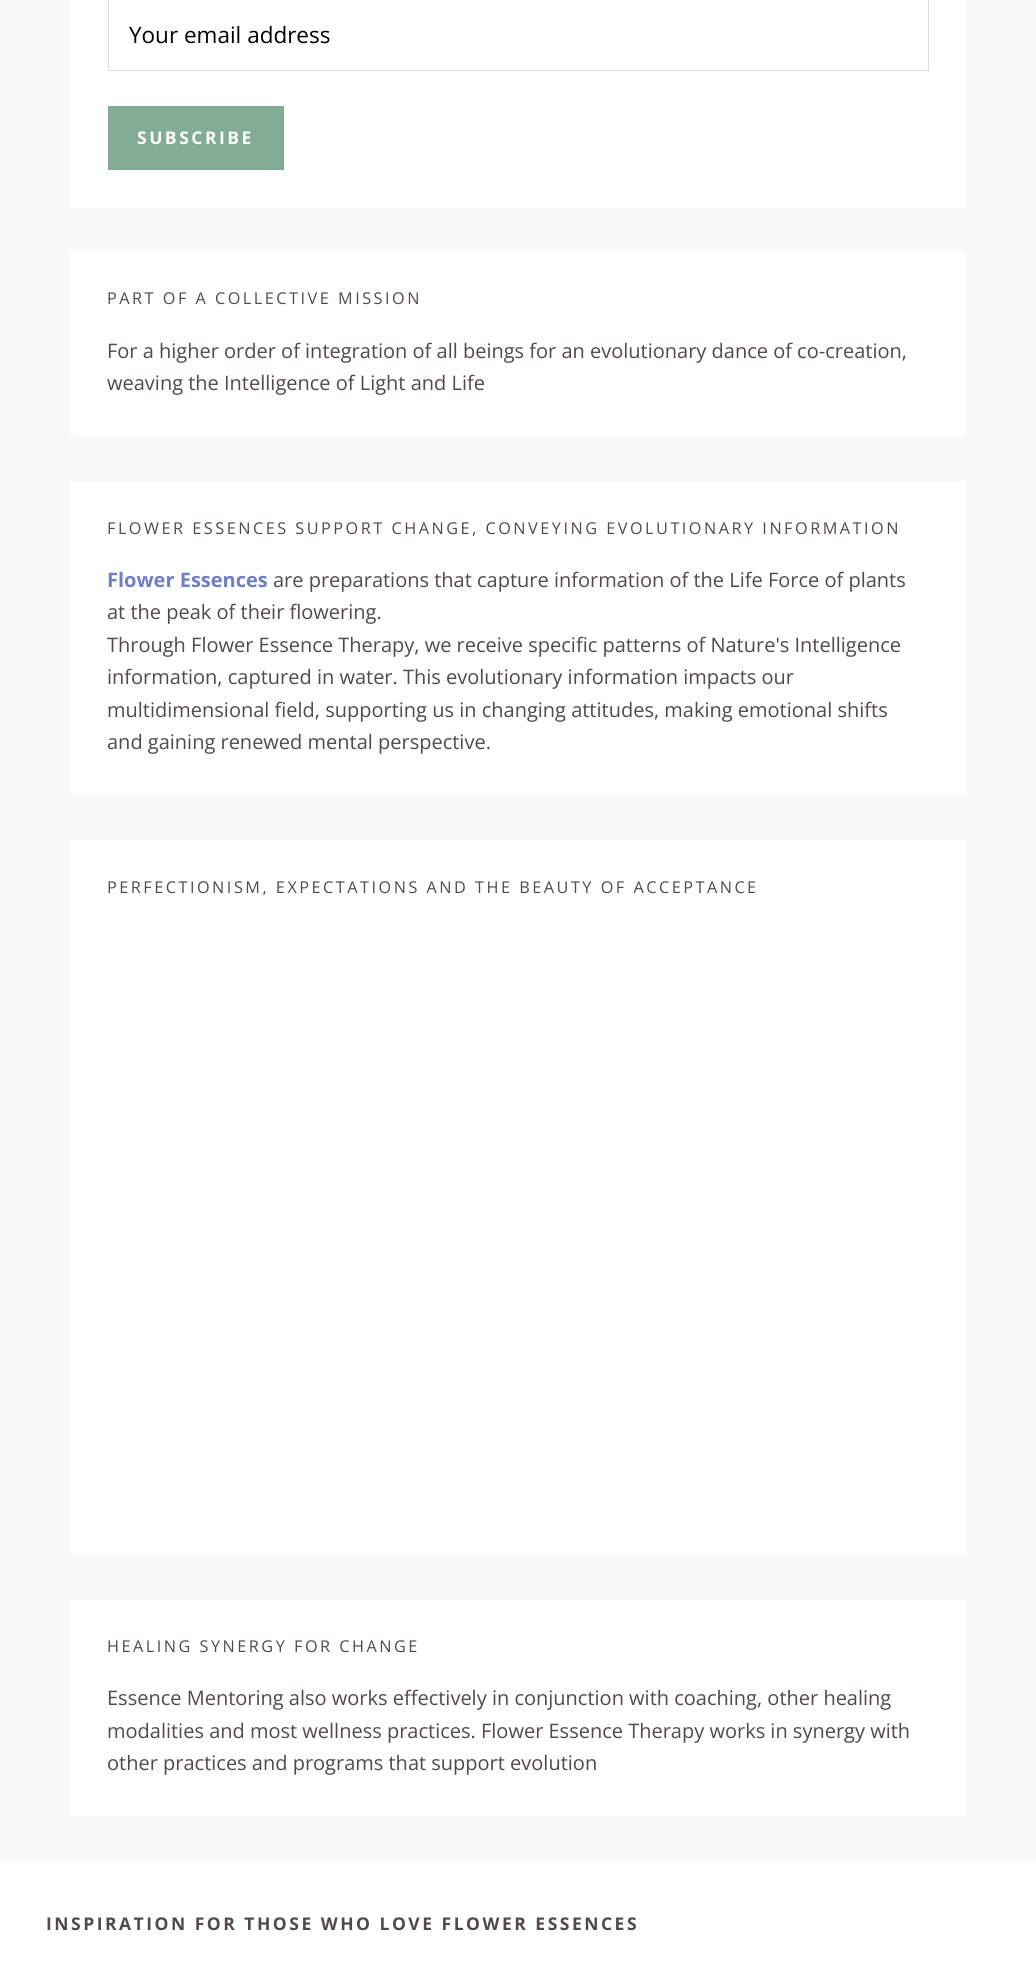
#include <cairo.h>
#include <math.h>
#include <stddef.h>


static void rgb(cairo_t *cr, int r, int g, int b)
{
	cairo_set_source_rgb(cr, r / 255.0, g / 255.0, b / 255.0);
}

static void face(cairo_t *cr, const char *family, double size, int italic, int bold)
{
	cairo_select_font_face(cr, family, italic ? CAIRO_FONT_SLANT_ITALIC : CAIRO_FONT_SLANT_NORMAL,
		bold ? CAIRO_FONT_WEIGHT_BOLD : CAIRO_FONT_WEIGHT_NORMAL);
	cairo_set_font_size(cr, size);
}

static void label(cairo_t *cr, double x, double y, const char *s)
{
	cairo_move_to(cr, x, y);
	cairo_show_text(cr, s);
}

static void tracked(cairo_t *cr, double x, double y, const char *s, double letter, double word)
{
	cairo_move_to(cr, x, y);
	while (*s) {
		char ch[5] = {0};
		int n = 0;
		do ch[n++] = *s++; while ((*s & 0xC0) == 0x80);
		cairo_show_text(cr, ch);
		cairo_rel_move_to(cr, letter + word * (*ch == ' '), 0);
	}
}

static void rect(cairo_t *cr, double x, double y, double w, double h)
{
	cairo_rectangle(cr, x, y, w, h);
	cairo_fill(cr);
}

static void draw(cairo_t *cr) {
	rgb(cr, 247, 249, 247);
	cairo_paint(cr);
	rgb(cr, 255, 255, 255);
	rect(cr, 70, 0, 896, 208);
	cairo_rectangle(cr, 108.5, -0.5, 820, 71);
	rgb(cr, 221, 221, 221);
	cairo_set_line_width(cr, 1);
	cairo_stroke(cr);
	face(cr, "Open Sans", 22.5, 0, 0);
	rgb(cr, 0, 0, 0);
	label(cr, 129, 43, "Your email address");
	rgb(cr, 130, 172, 147);
	rect(cr, 108, 106, 176, 64);
	face(cr, "Open Sans", 17.5, 0, 1);
	rgb(cr, 255, 255, 255);
	tracked(cr, 137, 144, "SUBSCRIBE", 2.5, 0);
	rect(cr, 70, 251, 896, 185);
	face(cr, "Open Sans", 16.25, 0, 0);
	rgb(cr, 81, 73, 75);
	tracked(cr, 107, 304, "PART OF A COLLECTIVE MISSION", 2.5, 0);
	face(cr, "Open Sans", 20, 0, 0);
	label(cr, 107, 358, "For a higher order of integration of all beings for an evolutionary dance of co-creation,");
	label(cr, 107, 390, "weaving the Intelligence of Light and Life");
	rgb(cr, 255, 255, 255);
	rect(cr, 70, 481, 896, 314);
	face(cr, "Open Sans", 16.25, 0, 0);
	rgb(cr, 81, 73, 75);
	tracked(cr, 107, 534, "FLOWER ESSENCES SUPPORT CHANGE, CONVEYING EVOLUTIONARY INFORMATION", 2.5, 0);
	face(cr, "Open Sans", 20, 0, 1);
	rgb(cr, 111, 127, 195);
	label(cr, 107, 587, "Flower Essences");
	face(cr, "Open Sans", 20, 0, 0);
	rgb(cr, 81, 73, 75);
	label(cr, 273, 587, "are preparations that capture information of the Life Force of plants");
	label(cr, 107, 619, "at the peak of their flowering.");
	label(cr, 107, 652, "Through Flower Essence Therapy, we receive specific patterns of Nature's Intelligence");
	label(cr, 107, 684, "information, captured in water. This evolutionary information impacts our");
	label(cr, 107, 717, "multidimensional field, supporting us in changing attitudes, making emotional shifts");
	label(cr, 107, 749, "and gaining renewed mental perspective.");
	rgb(cr, 255, 255, 255);
	rect(cr, 70, 840, 896, 715);
	face(cr, "Open Sans", 16.25, 0, 0);
	rgb(cr, 81, 73, 75);
	tracked(cr, 107, 893, "PERFECTIONISM, EXPECTATIONS AND THE BEAUTY OF ACCEPTANCE", 2.5, 0);
	rgb(cr, 255, 255, 255);
	rect(cr, 70, 1600, 896, 216);
	rgb(cr, 81, 73, 75);
	tracked(cr, 107, 1652, "HEALING SYNERGY FOR CHANGE", 2.5, 0);
	face(cr, "Open Sans", 20, 0, 0);
	label(cr, 107, 1705, "Essence Mentoring also works effectively in conjunction with coaching, other healing");
	label(cr, 107, 1738, "modalities and most wellness practices. Flower Essence Therapy works in synergy with");
	label(cr, 107, 1770, "other practices and programs that support evolution");
	rgb(cr, 255, 255, 255);
	rect(cr, 0, 1861, 1036, 106);
	face(cr, "Open Sans", 17.5, 0, 1);
	rgb(cr, 81, 73, 75);
	tracked(cr, 46, 1930, "INSPIRATION FOR THOSE WHO LOVE FLOWER ESSENCES", 2.5, 0);
}

int main(void) {
	cairo_surface_t *surface = cairo_image_surface_create(CAIRO_FORMAT_RGB24, 1036, 1967);
	cairo_t *cr = cairo_create(surface);
	cairo_font_options_t *options = cairo_font_options_create();
	cairo_font_options_set_hint_metrics(options, CAIRO_HINT_METRICS_OFF);
	cairo_font_options_set_hint_style(options, CAIRO_HINT_STYLE_NONE);
	cairo_set_font_options(cr, options);
	cairo_set_miter_limit(cr, 4);
	draw(cr);
	cairo_surface_write_to_png(surface, "render.png");
	cairo_font_options_destroy(options);
	cairo_destroy(cr);
	cairo_surface_destroy(surface);
	return 0;
}
